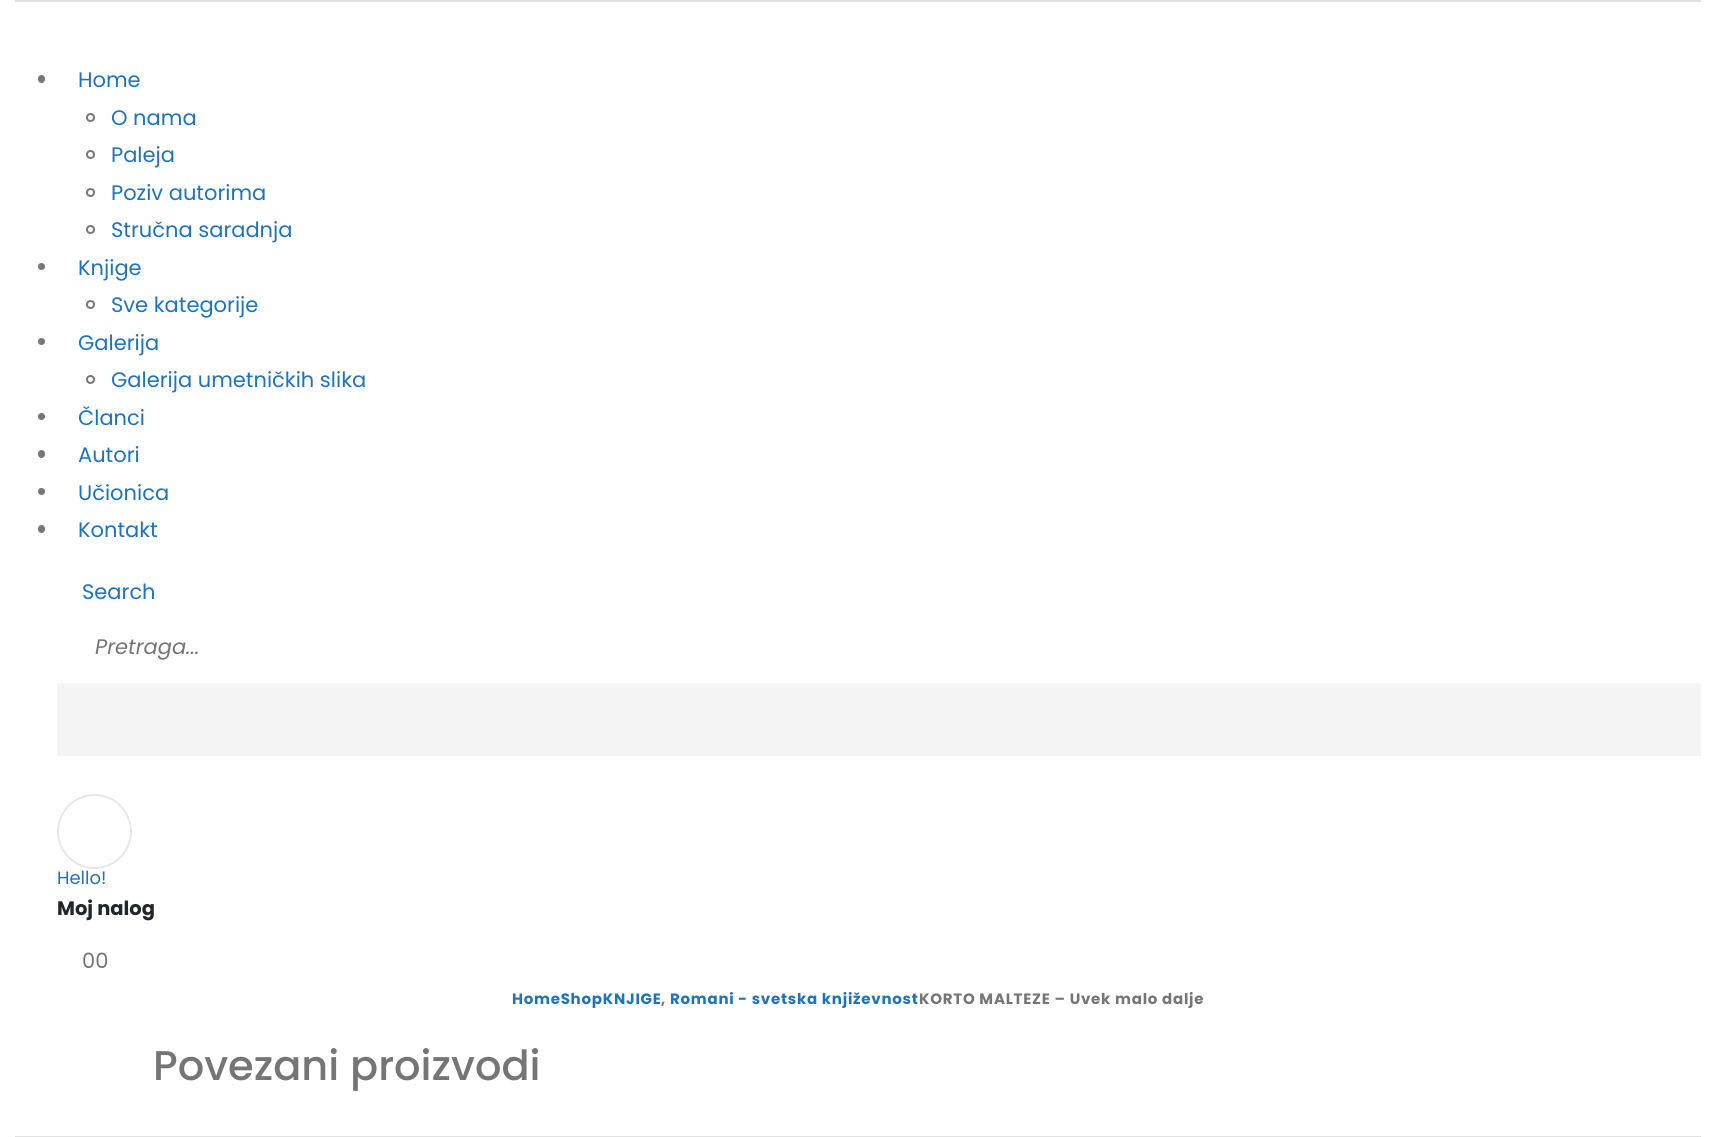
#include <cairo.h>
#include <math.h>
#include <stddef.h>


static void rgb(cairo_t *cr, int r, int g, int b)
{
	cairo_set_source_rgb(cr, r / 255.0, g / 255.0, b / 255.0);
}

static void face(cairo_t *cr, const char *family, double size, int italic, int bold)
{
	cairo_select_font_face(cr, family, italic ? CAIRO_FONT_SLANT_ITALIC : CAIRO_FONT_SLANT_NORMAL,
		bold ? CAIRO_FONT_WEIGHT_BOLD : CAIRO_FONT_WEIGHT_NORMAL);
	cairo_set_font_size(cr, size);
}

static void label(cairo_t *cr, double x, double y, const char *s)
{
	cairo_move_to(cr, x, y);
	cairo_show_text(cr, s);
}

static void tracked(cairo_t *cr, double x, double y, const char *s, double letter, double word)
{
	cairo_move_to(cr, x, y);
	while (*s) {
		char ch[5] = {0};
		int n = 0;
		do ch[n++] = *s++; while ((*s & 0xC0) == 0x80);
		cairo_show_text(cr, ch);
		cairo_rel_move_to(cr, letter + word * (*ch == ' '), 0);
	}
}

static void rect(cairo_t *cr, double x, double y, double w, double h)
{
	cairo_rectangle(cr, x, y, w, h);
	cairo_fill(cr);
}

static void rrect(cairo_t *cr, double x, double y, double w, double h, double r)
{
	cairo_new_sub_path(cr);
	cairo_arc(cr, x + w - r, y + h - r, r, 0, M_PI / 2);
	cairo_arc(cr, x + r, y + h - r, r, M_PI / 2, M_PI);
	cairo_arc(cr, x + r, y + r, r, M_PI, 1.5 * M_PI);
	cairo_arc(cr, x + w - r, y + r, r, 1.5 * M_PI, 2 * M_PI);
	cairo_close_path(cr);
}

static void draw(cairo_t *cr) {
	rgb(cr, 255, 255, 255);
	cairo_paint(cr);
	rgb(cr, 225, 225, 225);
	rect(cr, 15, 0, 1686, 2);
	rect(cr, 15, 1136, 1686, 1);
	rgb(cr, 119, 119, 119);
	rrect(cr, 38, 75, 7, 8, 3.5);
	cairo_fill(cr);
	face(cr, "Poppins", 21, 0, 0);
	rgb(cr, 30, 115, 190);
	label(cr, 78, 87, "Home");
	cairo_new_path(cr);
	cairo_arc(cr, 90.5, 117.5, 3.5, 0, 2 * M_PI);
	rgb(cr, 119, 119, 119);
	cairo_stroke(cr);
	rgb(cr, 30, 115, 190);
	label(cr, 111, 125, "O nama");
	cairo_new_path(cr);
	cairo_arc(cr, 90.5, 154.5, 3.5, 0, 2 * M_PI);
	rgb(cr, 119, 119, 119);
	cairo_stroke(cr);
	rgb(cr, 30, 115, 190);
	label(cr, 111, 162, "Paleja");
	cairo_new_path(cr);
	cairo_arc(cr, 90.5, 192.5, 3.5, 0, 2 * M_PI);
	rgb(cr, 119, 119, 119);
	cairo_stroke(cr);
	rgb(cr, 30, 115, 190);
	label(cr, 111, 200, "Poziv autorima");
	cairo_new_path(cr);
	cairo_arc(cr, 90.5, 229.5, 3.5, 0, 2 * M_PI);
	rgb(cr, 119, 119, 119);
	cairo_stroke(cr);
	rgb(cr, 30, 115, 190);
	label(cr, 111, 237, "Stručna saradnja");
	rgb(cr, 119, 119, 119);
	cairo_new_path(cr);
	cairo_arc(cr, 41.5, 266.5, 3.5, 0, 2 * M_PI);
	cairo_fill(cr);
	rgb(cr, 30, 115, 190);
	label(cr, 78, 275, "Knjige");
	cairo_new_path(cr);
	cairo_arc(cr, 90.5, 304.5, 3.5, 0, 2 * M_PI);
	rgb(cr, 119, 119, 119);
	cairo_stroke(cr);
	rgb(cr, 30, 115, 190);
	label(cr, 111, 312, "Sve kategorije");
	rgb(cr, 119, 119, 119);
	cairo_new_path(cr);
	cairo_arc(cr, 41.5, 341.5, 3.5, 0, 2 * M_PI);
	cairo_fill(cr);
	rgb(cr, 30, 115, 190);
	label(cr, 78, 350, "Galerija");
	cairo_new_path(cr);
	cairo_arc(cr, 90.5, 379.5, 3.5, 0, 2 * M_PI);
	rgb(cr, 119, 119, 119);
	cairo_stroke(cr);
	rgb(cr, 30, 115, 190);
	label(cr, 111, 387, "Galerija umetničkih slika");
	rgb(cr, 119, 119, 119);
	cairo_new_path(cr);
	cairo_arc(cr, 41.5, 416.5, 3.5, 0, 2 * M_PI);
	cairo_fill(cr);
	rgb(cr, 30, 115, 190);
	label(cr, 78, 425, "Članci");
	rgb(cr, 119, 119, 119);
	rrect(cr, 38, 450, 7, 8, 3.5);
	cairo_fill(cr);
	rgb(cr, 30, 115, 190);
	label(cr, 78, 462, "Autori");
	rgb(cr, 119, 119, 119);
	cairo_new_path(cr);
	cairo_arc(cr, 41.5, 491.5, 3.5, 0, 2 * M_PI);
	cairo_fill(cr);
	rgb(cr, 30, 115, 190);
	label(cr, 78, 500, "Učionica");
	rgb(cr, 119, 119, 119);
	rrect(cr, 38, 525, 7, 8, 3.5);
	cairo_fill(cr);
	rgb(cr, 30, 115, 190);
	label(cr, 78, 537, "Kontakt");
	label(cr, 82, 599, "Search");
	rgb(cr, 244, 244, 244);
	rect(cr, 57, 683, 1644, 73);
	face(cr, "Poppins", 21, 1, 0);
	rgb(cr, 117, 117, 117);
	label(cr, 95, 654, "Pretraga...");
	cairo_new_path(cr);
	cairo_arc(cr, 94.5, 831.5, 36.5, 0, 2 * M_PI);
	rgb(cr, 231, 231, 231);
	cairo_stroke(cr);
	face(cr, "Poppins", 18, 0, 0);
	rgb(cr, 30, 115, 190);
	label(cr, 57, 884, "Hello!");
	face(cr, "Poppins", 19.5, 0, 1);
	rgb(cr, 34, 37, 41);
	label(cr, 57, 915, "Moj nalog");
	face(cr, "Poppins", 21, 0, 0);
	rgb(cr, 117, 117, 117);
	label(cr, 82, 968, "00");
	face(cr, "Poppins", 15, 0, 1);
	rgb(cr, 30, 115, 190);
	tracked(cr, 512, 1004, "HomeShopKNJIGE", 0.75, 0);
	rgb(cr, 117, 117, 117);
	tracked(cr, 661, 1004, ",", 0.75, 0);
	rgb(cr, 30, 115, 190);
	tracked(cr, 670, 1004, "Romani - svetska književnost", 0.75, 0);
	rgb(cr, 117, 117, 117);
	tracked(cr, 919, 1004, "KORTO MALTEZE – Uvek malo dalje", 0.75, 0);
	face(cr, "Poppins Medium", 41.5, 0, 0);
	label(cr, 153, 1080, "Povezani proizvodi");
}

int main(void) {
	cairo_surface_t *surface = cairo_image_surface_create(CAIRO_FORMAT_RGB24, 1716, 1137);
	cairo_t *cr = cairo_create(surface);
	cairo_font_options_t *options = cairo_font_options_create();
	cairo_font_options_set_hint_metrics(options, CAIRO_HINT_METRICS_OFF);
	cairo_font_options_set_hint_style(options, CAIRO_HINT_STYLE_NONE);
	cairo_set_font_options(cr, options);
	cairo_set_miter_limit(cr, 4);
	draw(cr);
	cairo_surface_write_to_png(surface, "render.png");
	cairo_font_options_destroy(options);
	cairo_destroy(cr);
	cairo_surface_destroy(surface);
	return 0;
}
